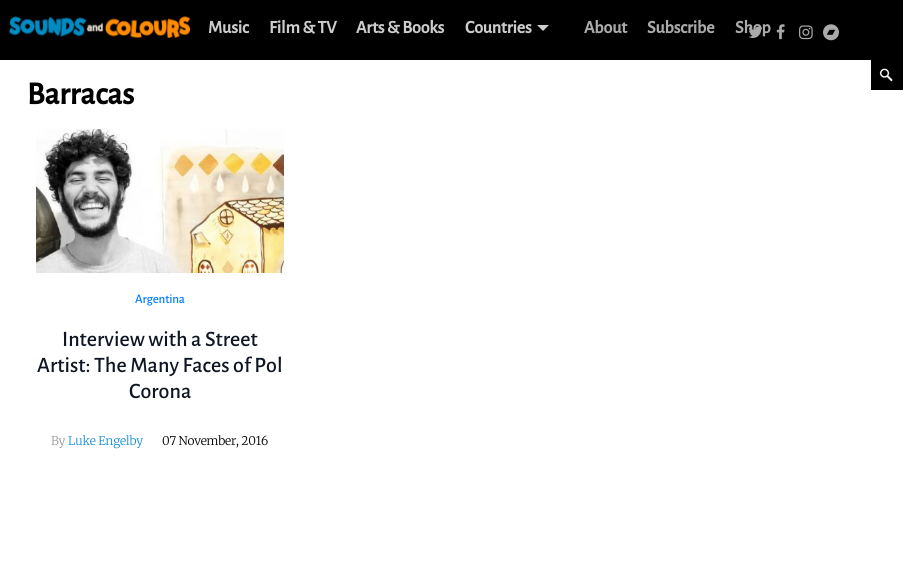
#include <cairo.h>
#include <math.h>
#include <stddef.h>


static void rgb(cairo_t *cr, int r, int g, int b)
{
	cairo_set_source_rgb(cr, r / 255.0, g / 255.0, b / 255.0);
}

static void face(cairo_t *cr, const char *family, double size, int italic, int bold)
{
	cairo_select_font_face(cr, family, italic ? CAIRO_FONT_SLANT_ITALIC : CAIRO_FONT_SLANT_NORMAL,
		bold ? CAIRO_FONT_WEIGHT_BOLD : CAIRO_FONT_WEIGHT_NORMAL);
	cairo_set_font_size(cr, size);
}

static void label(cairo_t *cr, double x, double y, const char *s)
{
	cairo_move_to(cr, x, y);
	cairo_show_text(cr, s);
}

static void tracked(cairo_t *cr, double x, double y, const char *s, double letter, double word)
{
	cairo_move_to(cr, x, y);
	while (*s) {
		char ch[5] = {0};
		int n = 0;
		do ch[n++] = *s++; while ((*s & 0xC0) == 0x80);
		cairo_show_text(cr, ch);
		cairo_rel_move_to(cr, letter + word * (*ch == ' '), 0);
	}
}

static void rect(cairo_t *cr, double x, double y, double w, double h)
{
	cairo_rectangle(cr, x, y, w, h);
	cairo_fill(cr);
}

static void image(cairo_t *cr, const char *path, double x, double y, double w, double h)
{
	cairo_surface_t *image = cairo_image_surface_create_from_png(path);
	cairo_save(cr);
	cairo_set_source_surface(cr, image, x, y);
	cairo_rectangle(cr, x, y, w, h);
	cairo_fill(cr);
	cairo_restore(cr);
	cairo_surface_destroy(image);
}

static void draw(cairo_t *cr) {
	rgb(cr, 255, 255, 255);
	cairo_paint(cr);
	rgb(cr, 0, 0, 0);
	rect(cr, 0, 0, 903, 60);
	image(cr, "image0.png", 9, 16, 181, 22);
	face(cr, "Alegreya Sans", 18, 0, 1);
	rgb(cr, 204, 204, 204);
	tracked(cr, 208, 33, "Music", -0.2, 0);
	tracked(cr, 269, 33, "Film & TV", -0.2, 0);
	tracked(cr, 356, 33, "Arts & Books", -0.2, 0);
	tracked(cr, 465, 33, "Countries", -0.2, 0);
	cairo_new_path(cr);
	cairo_move_to(cr, 537, 25);
	cairo_line_to(cr, 549, 25);
	cairo_line_to(cr, 543, 31);
	cairo_close_path(cr);
	cairo_fill(cr);
	rgb(cr, 170, 170, 170);
	tracked(cr, 584, 33, "About", -0.2, 0);
	tracked(cr, 647, 33, "Subscribe", -0.2, 0);
	tracked(cr, 735, 33, "Shop", -0.2, 0);
	image(cr, "image1.png", 748, 26, 15, 12);
	image(cr, "image2.png", 776, 24, 9, 16);
	image(cr, "image3.png", 799, 25, 14, 15);
	image(cr, "image4.png", 823, 24, 16, 17);
	rgb(cr, 0, 0, 0);
	rect(cr, 871, 60, 32, 30);
	image(cr, "image5.png", 879, 68, 14, 14);
	face(cr, "Alegreya Sans", 32, 0, 1);
	tracked(cr, 27, 104, "Barracas", -0.2, 0);
	image(cr, "image6.png", 36, 129, 248, 144);
	face(cr, "Alegreya Sans Medium", 13, 0, 0);
	rgb(cr, 3, 127, 255);
	tracked(cr, 135, 303, "Argentina", -0.2, 0);
	face(cr, "Alegreya Sans Medium", 22, 0, 0);
	rgb(cr, 14, 21, 35);
	label(cr, 62, 346, "Interview with a Street");
	label(cr, 37, 372, "Artist: The Many Faces of Pol");
	label(cr, 129, 398, "Corona");
	face(cr, "Merriweather Light", 12, 0, 0);
	rgb(cr, 152, 152, 152);
	tracked(cr, 51, 445, "By", -0.2, 0);
	rgb(cr, 22, 141, 217);
	tracked(cr, 68, 445, "Luke Engelby", -0.2, 0);
	rgb(cr, 0, 0, 0);
	tracked(cr, 162, 445, "07 November, 2016", -0.2, 0);
}

int main(void) {
	cairo_surface_t *surface = cairo_image_surface_create(CAIRO_FORMAT_RGB24, 903, 571);
	cairo_t *cr = cairo_create(surface);
	cairo_font_options_t *options = cairo_font_options_create();
	cairo_font_options_set_hint_metrics(options, CAIRO_HINT_METRICS_OFF);
	cairo_font_options_set_hint_style(options, CAIRO_HINT_STYLE_NONE);
	cairo_set_font_options(cr, options);
	cairo_set_miter_limit(cr, 4);
	draw(cr);
	cairo_surface_write_to_png(surface, "render.png");
	cairo_font_options_destroy(options);
	cairo_destroy(cr);
	cairo_surface_destroy(surface);
	return 0;
}
